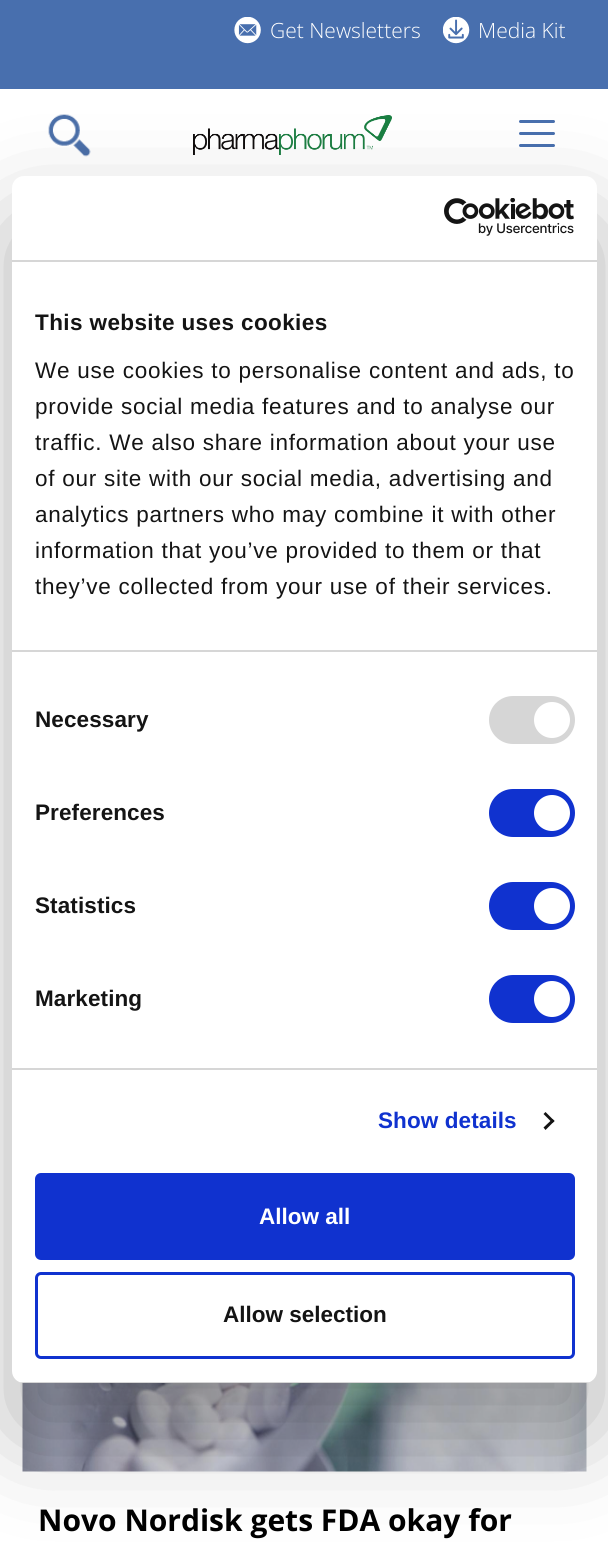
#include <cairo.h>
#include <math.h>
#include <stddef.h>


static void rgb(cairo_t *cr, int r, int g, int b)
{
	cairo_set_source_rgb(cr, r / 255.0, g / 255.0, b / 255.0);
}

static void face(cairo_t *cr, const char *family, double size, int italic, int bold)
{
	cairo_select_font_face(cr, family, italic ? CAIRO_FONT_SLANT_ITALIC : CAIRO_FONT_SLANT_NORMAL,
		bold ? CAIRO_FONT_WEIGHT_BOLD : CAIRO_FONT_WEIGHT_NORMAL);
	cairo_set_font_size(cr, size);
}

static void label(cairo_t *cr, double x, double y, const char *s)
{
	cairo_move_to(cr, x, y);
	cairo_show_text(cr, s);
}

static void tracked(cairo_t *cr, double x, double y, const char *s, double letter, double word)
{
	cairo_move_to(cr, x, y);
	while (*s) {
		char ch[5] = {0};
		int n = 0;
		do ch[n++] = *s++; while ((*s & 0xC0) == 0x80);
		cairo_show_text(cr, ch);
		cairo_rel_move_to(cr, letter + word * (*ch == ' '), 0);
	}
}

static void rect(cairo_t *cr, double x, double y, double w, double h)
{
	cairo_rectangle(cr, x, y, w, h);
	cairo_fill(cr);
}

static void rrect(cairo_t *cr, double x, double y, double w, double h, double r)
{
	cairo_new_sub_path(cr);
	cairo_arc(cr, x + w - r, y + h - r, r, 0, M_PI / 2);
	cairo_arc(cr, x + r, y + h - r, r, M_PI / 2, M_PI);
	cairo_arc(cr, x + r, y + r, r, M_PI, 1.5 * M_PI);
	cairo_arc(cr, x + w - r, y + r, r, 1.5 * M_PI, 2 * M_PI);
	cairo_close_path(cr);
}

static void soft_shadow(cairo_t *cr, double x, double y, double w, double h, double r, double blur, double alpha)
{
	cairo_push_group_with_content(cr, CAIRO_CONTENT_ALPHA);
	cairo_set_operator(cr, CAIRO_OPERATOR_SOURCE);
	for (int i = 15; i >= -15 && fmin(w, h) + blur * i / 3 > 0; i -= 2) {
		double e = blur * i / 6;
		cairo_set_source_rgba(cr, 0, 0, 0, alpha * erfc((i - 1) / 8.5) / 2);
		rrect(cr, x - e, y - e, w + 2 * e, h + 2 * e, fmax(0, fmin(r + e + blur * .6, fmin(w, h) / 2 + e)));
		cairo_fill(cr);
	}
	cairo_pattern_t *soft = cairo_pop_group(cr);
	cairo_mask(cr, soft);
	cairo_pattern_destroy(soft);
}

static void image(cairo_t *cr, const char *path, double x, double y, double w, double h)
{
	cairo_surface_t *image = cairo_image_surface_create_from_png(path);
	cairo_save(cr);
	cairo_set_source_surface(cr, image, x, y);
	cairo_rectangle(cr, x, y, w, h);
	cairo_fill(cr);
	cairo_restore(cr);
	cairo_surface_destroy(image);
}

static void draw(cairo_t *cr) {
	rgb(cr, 255, 255, 255);
	cairo_paint(cr);
	rgb(cr, 72, 111, 174);
	rect(cr, 0, 0, 608, 89);
	image(cr, "image0.png", 234, 17, 27, 27);
	face(cr, "Open Sans Light", 21, 0, 0);
	rgb(cr, 255, 255, 255);
	label(cr, 270, 38, "Get Newsletters");
	image(cr, "image1.png", 443, 17, 27, 27);
	label(cr, 478, 38, "Media Kit");
	image(cr, "image2.png", 48, 114, 43, 43);
	image(cr, "image3.png", 193, 115, 199, 40);
	cairo_new_path(cr);
	cairo_move_to(cr, 520.5, 121.5);
	cairo_line_to(cr, 553.5, 121.5);
	cairo_move_to(cr, 520.5, 133.5);
	cairo_line_to(cr, 553.5, 133.5);
	cairo_move_to(cr, 520.5, 145.5);
	cairo_line_to(cr, 553.5, 145.5);
	rgb(cr, 72, 111, 174);
	cairo_set_line_width(cr, 3);
	cairo_set_line_cap(cr, CAIRO_LINE_CAP_ROUND);
	cairo_stroke(cr);
	image(cr, "image4.png", 22, 1382, 565, 90);
	face(cr, "Open Sans", 30, 0, 1);
	rgb(cr, 0, 0, 0);
	label(cr, 38, 1531, "Novo Nordisk gets FDA okay for");
	rgb(cr, 0, 0, 0);
	soft_shadow(cr, 12, 224, 585, 1207, 12, 51, 0.3);
	rgb(cr, 255, 255, 255);
	rrect(cr, 12, 176, 585, 1207, 12);
	cairo_fill(cr);
	rgb(cr, 214, 214, 214);
	rect(cr, 12, 260, 585, 2);
	image(cr, "image5.png", 444, 198, 130, 38);
	rect(cr, 12, 650, 585, 2);
	face(cr, "Liberation Sans", 22.5, 0, 1);
	rgb(cr, 20, 20, 20);
	tracked(cr, 35, 330, "This website uses cookies", 0.4, 0);
	face(cr, "Liberation Sans", 22.5, 0, 0);
	tracked(cr, 35, 378, "We use cookies to personalise content and ads, to", 0.75, 0);
	tracked(cr, 35, 414, "provide social media features and to analyse our", 0.75, 0);
	tracked(cr, 35, 450, "traffic. We also share information about your use", 0.75, 0);
	tracked(cr, 35, 486, "of our site with our social media, advertising and", 0.75, 0);
	tracked(cr, 35, 522, "analytics partners who may combine it with other", 0.75, 0);
	tracked(cr, 35, 558, "information that you’ve provided to them or that", 0.75, 0);
	tracked(cr, 35, 594, "they’ve collected from your use of their services.", 0.75, 0);
	rgb(cr, 214, 214, 214);
	rect(cr, 12, 1068, 585, 2);
	face(cr, "Liberation Sans", 22.5, 0, 1);
	rgb(cr, 20, 20, 20);
	tracked(cr, 35, 727, "Necessary", 0.1, 0);
	rgb(cr, 214, 214, 214);
	rrect(cr, 489, 696, 86, 48, 24);
	cairo_fill(cr);
	rgb(cr, 255, 255, 255);
	cairo_arc(cr, 552, 720, 18, 0, 2 * M_PI);
	cairo_fill(cr);
	rgb(cr, 20, 20, 20);
	tracked(cr, 35, 820, "Preferences", 0.1, 0);
	rgb(cr, 16, 50, 207);
	rrect(cr, 489, 789, 86, 48, 24);
	cairo_fill(cr);
	rgb(cr, 255, 255, 255);
	cairo_arc(cr, 552, 813, 18, 0, 2 * M_PI);
	cairo_fill(cr);
	rgb(cr, 20, 20, 20);
	tracked(cr, 35, 913, "Statistics", 0.1, 0);
	rgb(cr, 16, 50, 207);
	rrect(cr, 489, 882, 86, 48, 24);
	cairo_fill(cr);
	rgb(cr, 255, 255, 255);
	cairo_arc(cr, 552, 906, 18, 0, 2 * M_PI);
	cairo_fill(cr);
	rgb(cr, 20, 20, 20);
	tracked(cr, 35, 1006, "Marketing", 0.1, 0);
	rgb(cr, 16, 50, 207);
	rrect(cr, 489, 975, 86, 48, 24);
	cairo_fill(cr);
	rgb(cr, 255, 255, 255);
	cairo_arc(cr, 552, 999, 18, 0, 2 * M_PI);
	cairo_fill(cr);
	rgb(cr, 16, 50, 207);
	tracked(cr, 378, 1128, "Show details", 0.1, 0);
	rgb(cr, 20, 20, 20);
	cairo_new_path(cr);
	cairo_move_to(cr, 545.5, 1112);
	cairo_line_to(cr, 554.5, 1121);
	cairo_line_to(cr, 552.5, 1123);
	cairo_line_to(cr, 543.5, 1114);
	cairo_close_path(cr);
	cairo_fill(cr);
	cairo_new_path(cr);
	cairo_move_to(cr, 552.5, 1119);
	cairo_line_to(cr, 554.5, 1121);
	cairo_line_to(cr, 545.5, 1130);
	cairo_line_to(cr, 543.5, 1127.5);
	cairo_close_path(cr);
	cairo_fill(cr);
	cairo_save(cr);
	rrect(cr, 12, 176, 585, 1207, 12);
	cairo_clip(cr);
	rgb(cr, 214, 214, 214);
	rect(cr, 12, 1382, 585, 1);
	cairo_restore(cr);
	rgb(cr, 16, 50, 207);
	rrect(cr, 36.5, 1174.5, 537, 84, 4.5);
	cairo_fill_preserve(cr);
	cairo_set_line_cap(cr, CAIRO_LINE_CAP_BUTT);
	cairo_stroke(cr);
	rgb(cr, 255, 255, 255);
	label(cr, 259, 1224, "Allow all");
	rrect(cr, 36.5, 1273.5, 537, 84, 4.5);
	rgb(cr, 16, 50, 207);
	cairo_stroke(cr);
	rgb(cr, 20, 20, 20);
	label(cr, 223, 1322, "Allow selection");
}

int main(void) {
	cairo_surface_t *surface = cairo_image_surface_create(CAIRO_FORMAT_RGB24, 608, 1556);
	cairo_t *cr = cairo_create(surface);
	cairo_font_options_t *options = cairo_font_options_create();
	cairo_font_options_set_hint_metrics(options, CAIRO_HINT_METRICS_OFF);
	cairo_font_options_set_hint_style(options, CAIRO_HINT_STYLE_NONE);
	cairo_set_font_options(cr, options);
	cairo_set_miter_limit(cr, 4);
	draw(cr);
	cairo_surface_write_to_png(surface, "render.png");
	cairo_font_options_destroy(options);
	cairo_destroy(cr);
	cairo_surface_destroy(surface);
	return 0;
}
